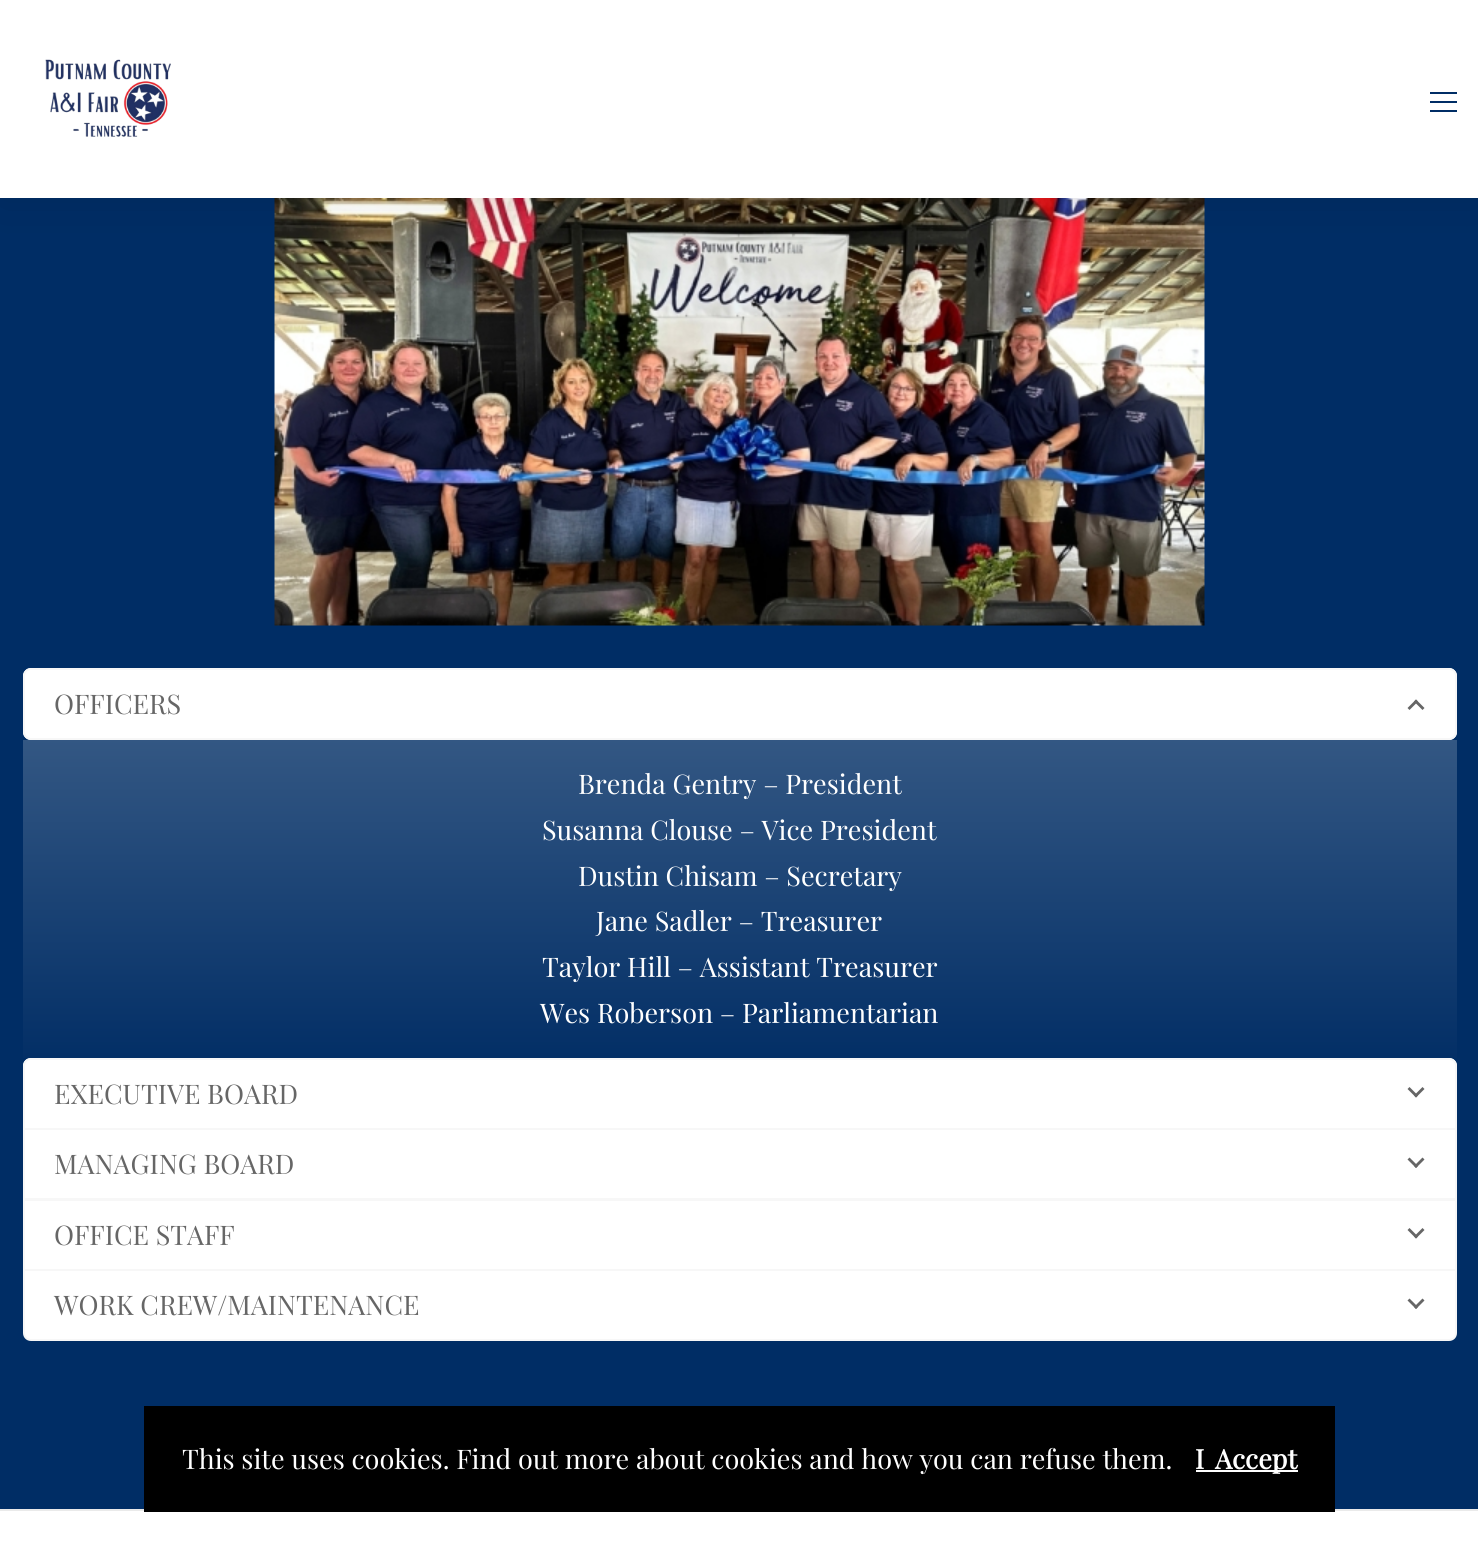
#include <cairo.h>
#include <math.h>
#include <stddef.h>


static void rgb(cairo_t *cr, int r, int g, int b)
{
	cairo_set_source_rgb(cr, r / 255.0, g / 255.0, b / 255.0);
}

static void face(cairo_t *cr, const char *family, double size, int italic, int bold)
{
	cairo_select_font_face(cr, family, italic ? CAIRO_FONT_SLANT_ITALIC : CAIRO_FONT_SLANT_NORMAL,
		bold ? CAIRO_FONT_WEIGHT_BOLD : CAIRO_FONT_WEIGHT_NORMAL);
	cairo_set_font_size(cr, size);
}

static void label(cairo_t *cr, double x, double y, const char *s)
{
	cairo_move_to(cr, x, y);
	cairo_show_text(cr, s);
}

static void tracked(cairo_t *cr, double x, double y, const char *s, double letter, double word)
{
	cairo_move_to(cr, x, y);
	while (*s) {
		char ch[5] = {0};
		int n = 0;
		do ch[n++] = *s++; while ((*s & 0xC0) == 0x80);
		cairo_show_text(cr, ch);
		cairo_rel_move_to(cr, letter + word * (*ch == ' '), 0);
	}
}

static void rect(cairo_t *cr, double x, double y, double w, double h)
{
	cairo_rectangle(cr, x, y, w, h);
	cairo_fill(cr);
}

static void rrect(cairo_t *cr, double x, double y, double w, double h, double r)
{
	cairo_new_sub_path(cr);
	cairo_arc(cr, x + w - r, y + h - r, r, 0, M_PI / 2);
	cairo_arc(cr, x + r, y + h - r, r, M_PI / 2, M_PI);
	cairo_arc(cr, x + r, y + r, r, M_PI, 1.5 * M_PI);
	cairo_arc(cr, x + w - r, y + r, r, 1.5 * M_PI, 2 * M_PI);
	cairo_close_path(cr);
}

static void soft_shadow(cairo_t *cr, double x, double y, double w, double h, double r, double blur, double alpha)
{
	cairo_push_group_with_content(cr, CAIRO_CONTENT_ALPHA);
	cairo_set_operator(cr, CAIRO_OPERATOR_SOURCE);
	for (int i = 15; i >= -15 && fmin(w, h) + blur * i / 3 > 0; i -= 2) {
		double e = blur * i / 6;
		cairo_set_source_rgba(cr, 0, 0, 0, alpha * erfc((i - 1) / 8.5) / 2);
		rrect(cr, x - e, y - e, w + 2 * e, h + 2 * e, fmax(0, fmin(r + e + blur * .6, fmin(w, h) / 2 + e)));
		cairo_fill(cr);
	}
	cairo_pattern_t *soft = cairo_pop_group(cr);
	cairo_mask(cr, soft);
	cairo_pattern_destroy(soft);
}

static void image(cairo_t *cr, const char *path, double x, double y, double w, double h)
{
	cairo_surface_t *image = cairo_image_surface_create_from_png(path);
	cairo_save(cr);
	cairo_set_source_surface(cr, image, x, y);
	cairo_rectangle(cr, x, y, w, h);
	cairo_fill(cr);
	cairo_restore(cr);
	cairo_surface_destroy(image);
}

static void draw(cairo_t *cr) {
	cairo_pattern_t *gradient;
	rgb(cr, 0, 45, 101);
	cairo_paint(cr);
	image(cr, "image1.png", 274, 198, 931, 428);
	rgb(cr, 0, 0, 0);
	soft_shadow(cr, 0, 2, 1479, 198, 0, 22.5, 0.1);
	rgb(cr, 255, 255, 255);
	rect(cr, 0, 0, 1478, 198);
	image(cr, "image0.png", 45, 59, 126, 78);
	rgb(cr, 0, 45, 101);
	rect(cr, 1430, 92, 27, 2);
	rect(cr, 1430, 101, 27, 2);
	rect(cr, 1430, 110, 27, 2);
	rgb(cr, 255, 255, 255);
	rrect(cr, 23, 668, 1434, 72, 8);
	cairo_fill(cr);
	cairo_save(cr);
	rrect(cr, 23, 668, 1434, 72, 8);
	cairo_clip(cr);
	gradient = cairo_pattern_create_linear(740, 669, 740, 738);
	cairo_pattern_add_color_stop_rgba(gradient, 0, 1, 1, 1, 0.2);
	cairo_pattern_add_color_stop_rgba(gradient, 1, 1, 1, 1, 0.01);
	cairo_set_source(cr, gradient);
	cairo_pattern_destroy(gradient);
	rect(cr, 23, 669, 1434, 65);
	cairo_restore(cr);
	rrect(cr, 24, 669, 1432, 70, 7);
	rgb(cr, 247, 247, 247);
	cairo_stroke(cr);
	face(cr, "Playfair Display", 27, 0, 0);
	rgb(cr, 102, 102, 102);
	label(cr, 54, 714, "OFFICERS");
	cairo_new_path(cr);
	cairo_move_to(cr, 1409.5, 710);
	cairo_line_to(cr, 1407.5, 708);
	cairo_line_to(cr, 1416, 699.5);
	cairo_line_to(cr, 1418, 701.5);
	cairo_close_path(cr);
	cairo_fill(cr);
	cairo_new_path(cr);
	cairo_move_to(cr, 1422.5, 710);
	cairo_line_to(cr, 1414, 701.5);
	cairo_line_to(cr, 1416, 699.5);
	cairo_line_to(cr, 1424.5, 708);
	cairo_close_path(cr);
	cairo_fill(cr);
	gradient = cairo_pattern_create_linear(740, 739, 740, 1058);
	cairo_pattern_add_color_stop_rgba(gradient, 0, 0.2, 0.341, 0.514, 1);
	cairo_pattern_add_color_stop_rgba(gradient, 1, 0.012, 0.184, 0.4, 1);
	cairo_set_source(cr, gradient);
	cairo_pattern_destroy(gradient);
	rect(cr, 23, 740, 1434, 318);
	rgb(cr, 255, 255, 255);
	label(cr, 578, 794, "Brenda Gentry – President");
	label(cr, 542, 840, "Susanna Clouse – Vice President");
	label(cr, 578, 886, "Dustin Chisam – Secretary");
	label(cr, 596, 931, "Jane Sadler – Treasurer");
	label(cr, 542, 977, "Taylor Hill – Assistant Treasurer");
	label(cr, 540, 1023, "Wes Roberson – Parliamentarian");
	cairo_new_path(cr);
	cairo_move_to(cr, 31, 1058);
	cairo_line_to(cr, 1449, 1058);
	cairo_curve_to(cr, 1453.5, 1058, 1457, 1061.5, 1457, 1066);
	cairo_line_to(cr, 1457, 1130);
	cairo_line_to(cr, 23, 1130);
	cairo_line_to(cr, 23, 1066);
	cairo_curve_to(cr, 23, 1061.5, 26.5, 1058, 31, 1058);
	cairo_close_path(cr);
	cairo_fill(cr);
	cairo_save(cr);
	cairo_new_path(cr);
	cairo_move_to(cr, 31, 1058);
	cairo_line_to(cr, 1449, 1058);
	cairo_curve_to(cr, 1453.5, 1058, 1457, 1061.5, 1457, 1066);
	cairo_line_to(cr, 1457, 1130);
	cairo_line_to(cr, 23, 1130);
	cairo_line_to(cr, 23, 1066);
	cairo_curve_to(cr, 23, 1061.5, 26.5, 1058, 31, 1058);
	cairo_close_path(cr);
	cairo_clip(cr);
	gradient = cairo_pattern_create_linear(740, 1059, 740, 1128);
	cairo_pattern_add_color_stop_rgba(gradient, 0, 1, 1, 1, 0.2);
	cairo_pattern_add_color_stop_rgba(gradient, 1, 1, 1, 1, 0.01);
	cairo_set_source(cr, gradient);
	cairo_pattern_destroy(gradient);
	rect(cr, 23, 1059, 1434, 65);
	cairo_restore(cr);
	cairo_new_path(cr);
	cairo_move_to(cr, 31, 1059);
	cairo_line_to(cr, 1449, 1059);
	cairo_curve_to(cr, 1453, 1059, 1456, 1062, 1456, 1066);
	cairo_line_to(cr, 1456, 1129);
	cairo_line_to(cr, 24, 1129);
	cairo_line_to(cr, 24, 1066);
	cairo_curve_to(cr, 24, 1062, 27, 1059, 31, 1059);
	cairo_close_path(cr);
	rgb(cr, 247, 247, 247);
	cairo_stroke(cr);
	rgb(cr, 102, 102, 102);
	label(cr, 54, 1104, "EXECUTIVE BOARD");
	cairo_new_path(cr);
	cairo_move_to(cr, 1422.5, 1087);
	cairo_line_to(cr, 1424.5, 1089);
	cairo_line_to(cr, 1416, 1097.5);
	cairo_line_to(cr, 1414, 1095.5);
	cairo_close_path(cr);
	cairo_fill(cr);
	cairo_new_path(cr);
	cairo_move_to(cr, 1409.5, 1087);
	cairo_line_to(cr, 1418, 1095.5);
	cairo_line_to(cr, 1416, 1097.5);
	cairo_line_to(cr, 1407.5, 1089);
	cairo_close_path(cr);
	cairo_fill(cr);
	rgb(cr, 255, 255, 255);
	cairo_rectangle(cr, 24, 1129, 1432, 70);
	cairo_fill_preserve(cr);
	rgb(cr, 247, 247, 247);
	cairo_stroke(cr);
	rgb(cr, 102, 102, 102);
	label(cr, 54, 1174, "MANAGING BOARD");
	cairo_new_path(cr);
	cairo_move_to(cr, 1422.5, 1157.5);
	cairo_line_to(cr, 1424.5, 1159.5);
	cairo_line_to(cr, 1416, 1168);
	cairo_line_to(cr, 1414, 1166);
	cairo_close_path(cr);
	cairo_fill(cr);
	cairo_new_path(cr);
	cairo_move_to(cr, 1409.5, 1157.5);
	cairo_line_to(cr, 1418, 1166);
	cairo_line_to(cr, 1416, 1168);
	cairo_line_to(cr, 1407.5, 1159.5);
	cairo_close_path(cr);
	cairo_fill(cr);
	rgb(cr, 255, 255, 255);
	cairo_rectangle(cr, 24, 1200, 1432, 70);
	cairo_fill_preserve(cr);
	rgb(cr, 247, 247, 247);
	cairo_stroke(cr);
	rgb(cr, 102, 102, 102);
	label(cr, 54, 1245, "OFFICE STAFF");
	cairo_new_path(cr);
	cairo_move_to(cr, 1422.5, 1228);
	cairo_line_to(cr, 1424.5, 1230);
	cairo_line_to(cr, 1416, 1238.5);
	cairo_line_to(cr, 1414, 1236.5);
	cairo_close_path(cr);
	cairo_fill(cr);
	cairo_new_path(cr);
	cairo_move_to(cr, 1409.5, 1228);
	cairo_line_to(cr, 1418, 1236.5);
	cairo_line_to(cr, 1416, 1238.5);
	cairo_line_to(cr, 1407.5, 1230);
	cairo_close_path(cr);
	cairo_fill(cr);
	rgb(cr, 255, 255, 255);
	cairo_new_path(cr);
	cairo_move_to(cr, 24, 1270);
	cairo_line_to(cr, 1456, 1270);
	cairo_line_to(cr, 1456, 1333);
	cairo_curve_to(cr, 1456, 1337, 1453, 1340, 1449, 1340);
	cairo_line_to(cr, 31, 1340);
	cairo_curve_to(cr, 27, 1340, 24, 1337, 24, 1333);
	cairo_close_path(cr);
	cairo_fill_preserve(cr);
	rgb(cr, 247, 247, 247);
	cairo_stroke(cr);
	rgb(cr, 102, 102, 102);
	label(cr, 54, 1315, "WORK CREW/MAINTENANCE");
	cairo_new_path(cr);
	cairo_move_to(cr, 1422.5, 1298.5);
	cairo_line_to(cr, 1424.5, 1300.5);
	cairo_line_to(cr, 1416, 1309);
	cairo_line_to(cr, 1414, 1307);
	cairo_close_path(cr);
	cairo_fill(cr);
	cairo_new_path(cr);
	cairo_move_to(cr, 1409.5, 1298.5);
	cairo_line_to(cr, 1418, 1307);
	cairo_line_to(cr, 1416, 1309);
	cairo_line_to(cr, 1407.5, 1300.5);
	cairo_close_path(cr);
	cairo_fill(cr);
	rgb(cr, 255, 255, 255);
	rect(cr, 0, 1511, 1478, 45);
	rgb(cr, 234, 234, 234);
	rect(cr, 0, 1509, 1478, 2);
	rgb(cr, 0, 0, 0);
	rect(cr, 144, 1406, 1191, 106);
	rgb(cr, 255, 255, 255);
	label(cr, 182, 1469, "This site uses cookies. Find out more about cookies and how you can refuse them.");
	rect(cr, 1196, 1470, 102, 2);
	face(cr, "Playfair Display", 27, 0, 1);
	tracked(cr, 1195, 1469, "I Accept", 0, 4);
}

int main(void) {
	cairo_surface_t *surface = cairo_image_surface_create(CAIRO_FORMAT_RGB24, 1478, 1556);
	cairo_t *cr = cairo_create(surface);
	cairo_font_options_t *options = cairo_font_options_create();
	cairo_font_options_set_hint_metrics(options, CAIRO_HINT_METRICS_OFF);
	cairo_font_options_set_hint_style(options, CAIRO_HINT_STYLE_NONE);
	cairo_set_font_options(cr, options);
	cairo_set_miter_limit(cr, 4);
	draw(cr);
	cairo_surface_write_to_png(surface, "render.png");
	cairo_font_options_destroy(options);
	cairo_destroy(cr);
	cairo_surface_destroy(surface);
	return 0;
}
